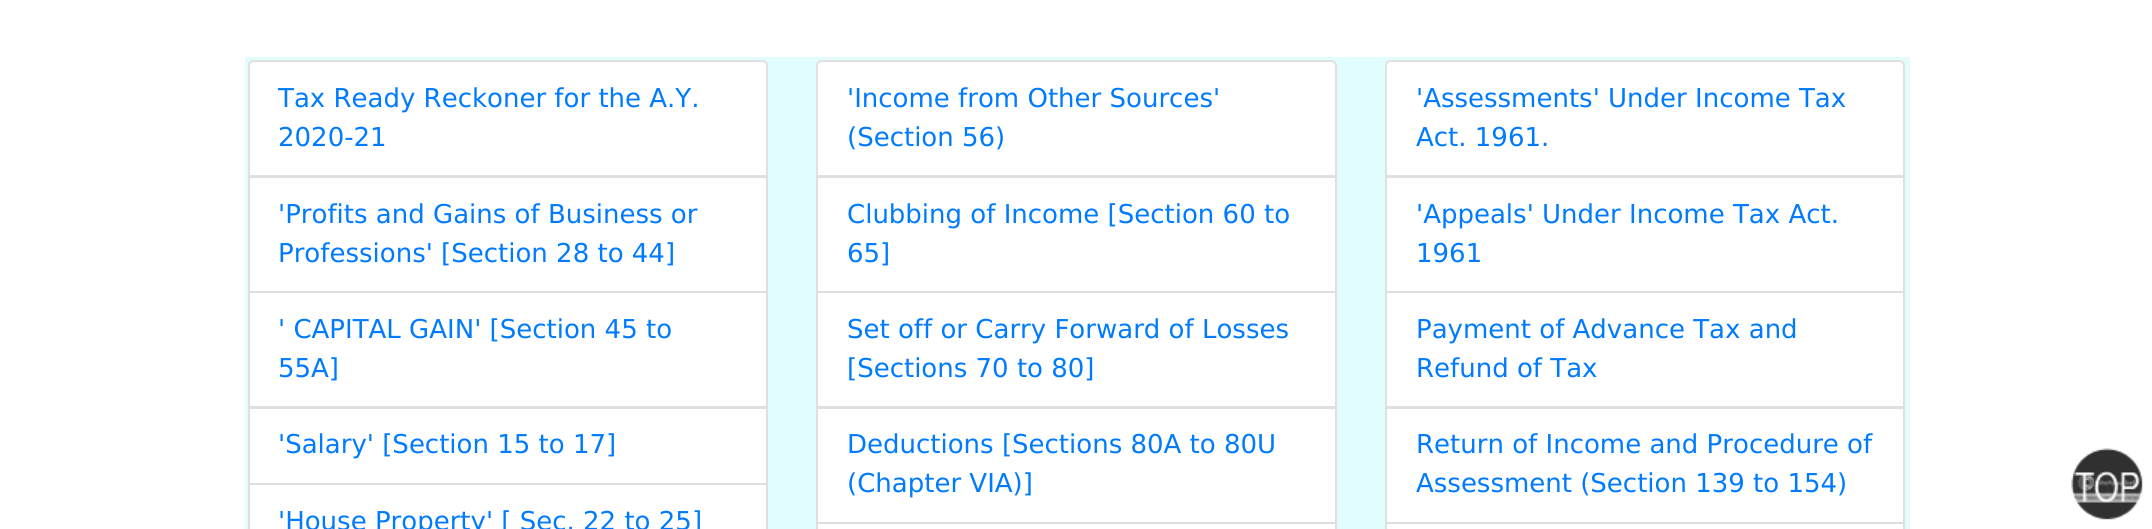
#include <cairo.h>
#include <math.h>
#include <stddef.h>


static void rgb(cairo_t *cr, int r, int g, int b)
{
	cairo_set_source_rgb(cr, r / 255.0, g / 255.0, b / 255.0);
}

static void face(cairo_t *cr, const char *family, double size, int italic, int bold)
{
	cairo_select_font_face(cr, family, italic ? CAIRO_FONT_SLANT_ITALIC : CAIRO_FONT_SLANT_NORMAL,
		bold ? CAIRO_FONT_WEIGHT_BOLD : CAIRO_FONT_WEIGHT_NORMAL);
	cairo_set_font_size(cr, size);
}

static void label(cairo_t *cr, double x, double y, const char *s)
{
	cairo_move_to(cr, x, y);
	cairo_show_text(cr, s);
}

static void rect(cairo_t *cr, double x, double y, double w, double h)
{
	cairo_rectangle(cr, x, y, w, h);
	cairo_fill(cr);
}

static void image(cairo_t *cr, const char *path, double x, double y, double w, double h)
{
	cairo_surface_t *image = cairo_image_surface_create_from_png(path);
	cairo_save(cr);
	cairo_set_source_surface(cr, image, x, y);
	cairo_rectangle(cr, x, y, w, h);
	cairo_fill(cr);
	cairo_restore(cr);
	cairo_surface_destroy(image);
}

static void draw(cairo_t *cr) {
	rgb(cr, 255, 255, 255);
	cairo_paint(cr);
	rgb(cr, 225, 253, 253);
	rect(cr, 245, 57, 1665, 472);
	rgb(cr, 255, 255, 255);
	cairo_new_path(cr);
	cairo_move_to(cr, 254, 60);
	cairo_line_to(cr, 762, 60);
	cairo_curve_to(cr, 765.5, 60, 768, 62.5, 768, 66);
	cairo_line_to(cr, 768, 177);
	cairo_line_to(cr, 248, 177);
	cairo_line_to(cr, 248, 66);
	cairo_curve_to(cr, 248, 62.5, 250.5, 60, 254, 60);
	cairo_close_path(cr);
	cairo_fill(cr);
	cairo_new_path(cr);
	cairo_move_to(cr, 254, 61);
	cairo_line_to(cr, 762, 61);
	cairo_curve_to(cr, 765, 61, 767, 63, 767, 66);
	cairo_line_to(cr, 767, 176);
	cairo_line_to(cr, 249, 176);
	cairo_line_to(cr, 249, 66);
	cairo_curve_to(cr, 249, 63, 251, 61, 254, 61);
	cairo_close_path(cr);
	cairo_set_source_rgba(cr, 0, 0, 0, 0.12);
	cairo_stroke(cr);
	face(cr, "DejaVu Sans", 26, 0, 0);
	rgb(cr, 0, 123, 255);
	label(cr, 278, 107, "Tax Ready Reckoner for the A.Y.");
	label(cr, 278, 146, "2020-21");
	rgb(cr, 255, 255, 255);
	cairo_rectangle(cr, 249, 177, 518, 115);
	cairo_fill_preserve(cr);
	rgb(cr, 223, 223, 223);
	cairo_stroke(cr);
	rgb(cr, 0, 123, 255);
	label(cr, 278, 223, "'Profits and Gains of Business or");
	label(cr, 278, 262, "Professions' [Section 28 to 44]");
	rgb(cr, 255, 255, 255);
	cairo_rectangle(cr, 249, 292, 518, 115);
	cairo_fill_preserve(cr);
	rgb(cr, 223, 223, 223);
	cairo_stroke(cr);
	rgb(cr, 0, 123, 255);
	label(cr, 278, 338, "' CAPITAL GAIN' [Section 45 to");
	label(cr, 278, 377, "55A]");
	rgb(cr, 255, 255, 255);
	cairo_rectangle(cr, 249, 408, 518, 76);
	cairo_fill_preserve(cr);
	rgb(cr, 223, 223, 223);
	cairo_stroke(cr);
	rgb(cr, 0, 123, 255);
	label(cr, 278, 453, "'Salary' [Section 15 to 17]");
	rgb(cr, 255, 255, 255);
	cairo_rectangle(cr, 249, 484, 518, 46);
	cairo_fill_preserve(cr);
	rgb(cr, 223, 223, 223);
	cairo_stroke(cr);
	rgb(cr, 0, 123, 255);
	label(cr, 278, 530, "'House Property' [ Sec. 22 to 25]");
	rgb(cr, 255, 255, 255);
	cairo_new_path(cr);
	cairo_move_to(cr, 822, 60);
	cairo_line_to(cr, 1331, 60);
	cairo_curve_to(cr, 1334.5, 60, 1337, 62.5, 1337, 66);
	cairo_line_to(cr, 1337, 177);
	cairo_line_to(cr, 816, 177);
	cairo_line_to(cr, 816, 66);
	cairo_curve_to(cr, 816, 62.5, 818.5, 60, 822, 60);
	cairo_close_path(cr);
	cairo_fill(cr);
	cairo_new_path(cr);
	cairo_move_to(cr, 822, 61);
	cairo_line_to(cr, 1331, 61);
	cairo_curve_to(cr, 1334, 61, 1336, 63, 1336, 66);
	cairo_line_to(cr, 1336, 176);
	cairo_line_to(cr, 817, 176);
	cairo_line_to(cr, 817, 66);
	cairo_curve_to(cr, 817, 63, 819, 61, 822, 61);
	cairo_close_path(cr);
	cairo_set_source_rgba(cr, 0, 0, 0, 0.12);
	cairo_stroke(cr);
	rgb(cr, 0, 123, 255);
	label(cr, 847, 107, "'Income from Other Sources'");
	label(cr, 847, 146, "(Section 56)");
	rgb(cr, 255, 255, 255);
	cairo_rectangle(cr, 817, 177, 519, 115);
	cairo_fill_preserve(cr);
	rgb(cr, 223, 223, 223);
	cairo_stroke(cr);
	rgb(cr, 0, 123, 255);
	label(cr, 847, 223, "Clubbing of Income [Section 60 to");
	label(cr, 847, 262, "65]");
	rgb(cr, 255, 255, 255);
	cairo_rectangle(cr, 817, 292, 519, 115);
	cairo_fill_preserve(cr);
	rgb(cr, 223, 223, 223);
	cairo_stroke(cr);
	rgb(cr, 0, 123, 255);
	label(cr, 847, 338, "Set off or Carry Forward of Losses");
	label(cr, 847, 377, "[Sections 70 to 80]");
	rgb(cr, 255, 255, 255);
	cairo_rectangle(cr, 817, 408, 519, 115);
	cairo_fill_preserve(cr);
	rgb(cr, 223, 223, 223);
	cairo_stroke(cr);
	rgb(cr, 0, 123, 255);
	label(cr, 847, 453, "Deductions [Sections 80A to 80U");
	label(cr, 847, 492, "(Chapter VIA)]");
	rgb(cr, 255, 255, 255);
	cairo_rectangle(cr, 817, 523, 519, 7);
	cairo_fill_preserve(cr);
	rgb(cr, 223, 223, 223);
	cairo_stroke(cr);
	rgb(cr, 255, 255, 255);
	cairo_new_path(cr);
	cairo_move_to(cr, 1391, 60);
	cairo_line_to(cr, 1899, 60);
	cairo_curve_to(cr, 1902.5, 60, 1905, 62.5, 1905, 66);
	cairo_line_to(cr, 1905, 177);
	cairo_line_to(cr, 1385, 177);
	cairo_line_to(cr, 1385, 66);
	cairo_curve_to(cr, 1385, 62.5, 1387.5, 60, 1391, 60);
	cairo_close_path(cr);
	cairo_fill(cr);
	cairo_new_path(cr);
	cairo_move_to(cr, 1391, 61);
	cairo_line_to(cr, 1899, 61);
	cairo_curve_to(cr, 1902, 61, 1904, 63, 1904, 66);
	cairo_line_to(cr, 1904, 176);
	cairo_line_to(cr, 1386, 176);
	cairo_line_to(cr, 1386, 66);
	cairo_curve_to(cr, 1386, 63, 1388, 61, 1391, 61);
	cairo_close_path(cr);
	cairo_set_source_rgba(cr, 0, 0, 0, 0.12);
	cairo_stroke(cr);
	rgb(cr, 0, 123, 255);
	label(cr, 1416, 107, "'Assessments' Under Income Tax");
	label(cr, 1416, 146, "Act. 1961.");
	rgb(cr, 255, 255, 255);
	cairo_rectangle(cr, 1386, 177, 518, 115);
	cairo_fill_preserve(cr);
	rgb(cr, 223, 223, 223);
	cairo_stroke(cr);
	rgb(cr, 0, 123, 255);
	label(cr, 1416, 223, "'Appeals' Under Income Tax Act.");
	label(cr, 1416, 262, "1961");
	rgb(cr, 255, 255, 255);
	cairo_rectangle(cr, 1386, 292, 518, 115);
	cairo_fill_preserve(cr);
	rgb(cr, 223, 223, 223);
	cairo_stroke(cr);
	rgb(cr, 0, 123, 255);
	label(cr, 1416, 338, "Payment of Advance Tax and");
	label(cr, 1416, 377, "Refund of Tax");
	rgb(cr, 255, 255, 255);
	cairo_rectangle(cr, 1386, 408, 518, 115);
	cairo_fill_preserve(cr);
	rgb(cr, 223, 223, 223);
	cairo_stroke(cr);
	rgb(cr, 0, 123, 255);
	label(cr, 1416, 453, "Return of Income and Procedure of");
	label(cr, 1416, 492, "Assessment (Section 139 to 154)");
	rgb(cr, 255, 255, 255);
	cairo_rectangle(cr, 1386, 523, 518, 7);
	cairo_fill_preserve(cr);
	rgb(cr, 223, 223, 223);
	cairo_stroke(cr);
	image(cr, "image0.png", 2071, 448, 72, 72);
}

int main(void) {
	cairo_surface_t *surface = cairo_image_surface_create(CAIRO_FORMAT_RGB24, 2152, 529);
	cairo_t *cr = cairo_create(surface);
	cairo_font_options_t *options = cairo_font_options_create();
	cairo_font_options_set_hint_metrics(options, CAIRO_HINT_METRICS_OFF);
	cairo_font_options_set_hint_style(options, CAIRO_HINT_STYLE_NONE);
	cairo_set_font_options(cr, options);
	cairo_set_miter_limit(cr, 4);
	draw(cr);
	cairo_surface_write_to_png(surface, "render.png");
	cairo_font_options_destroy(options);
	cairo_destroy(cr);
	cairo_surface_destroy(surface);
	return 0;
}
